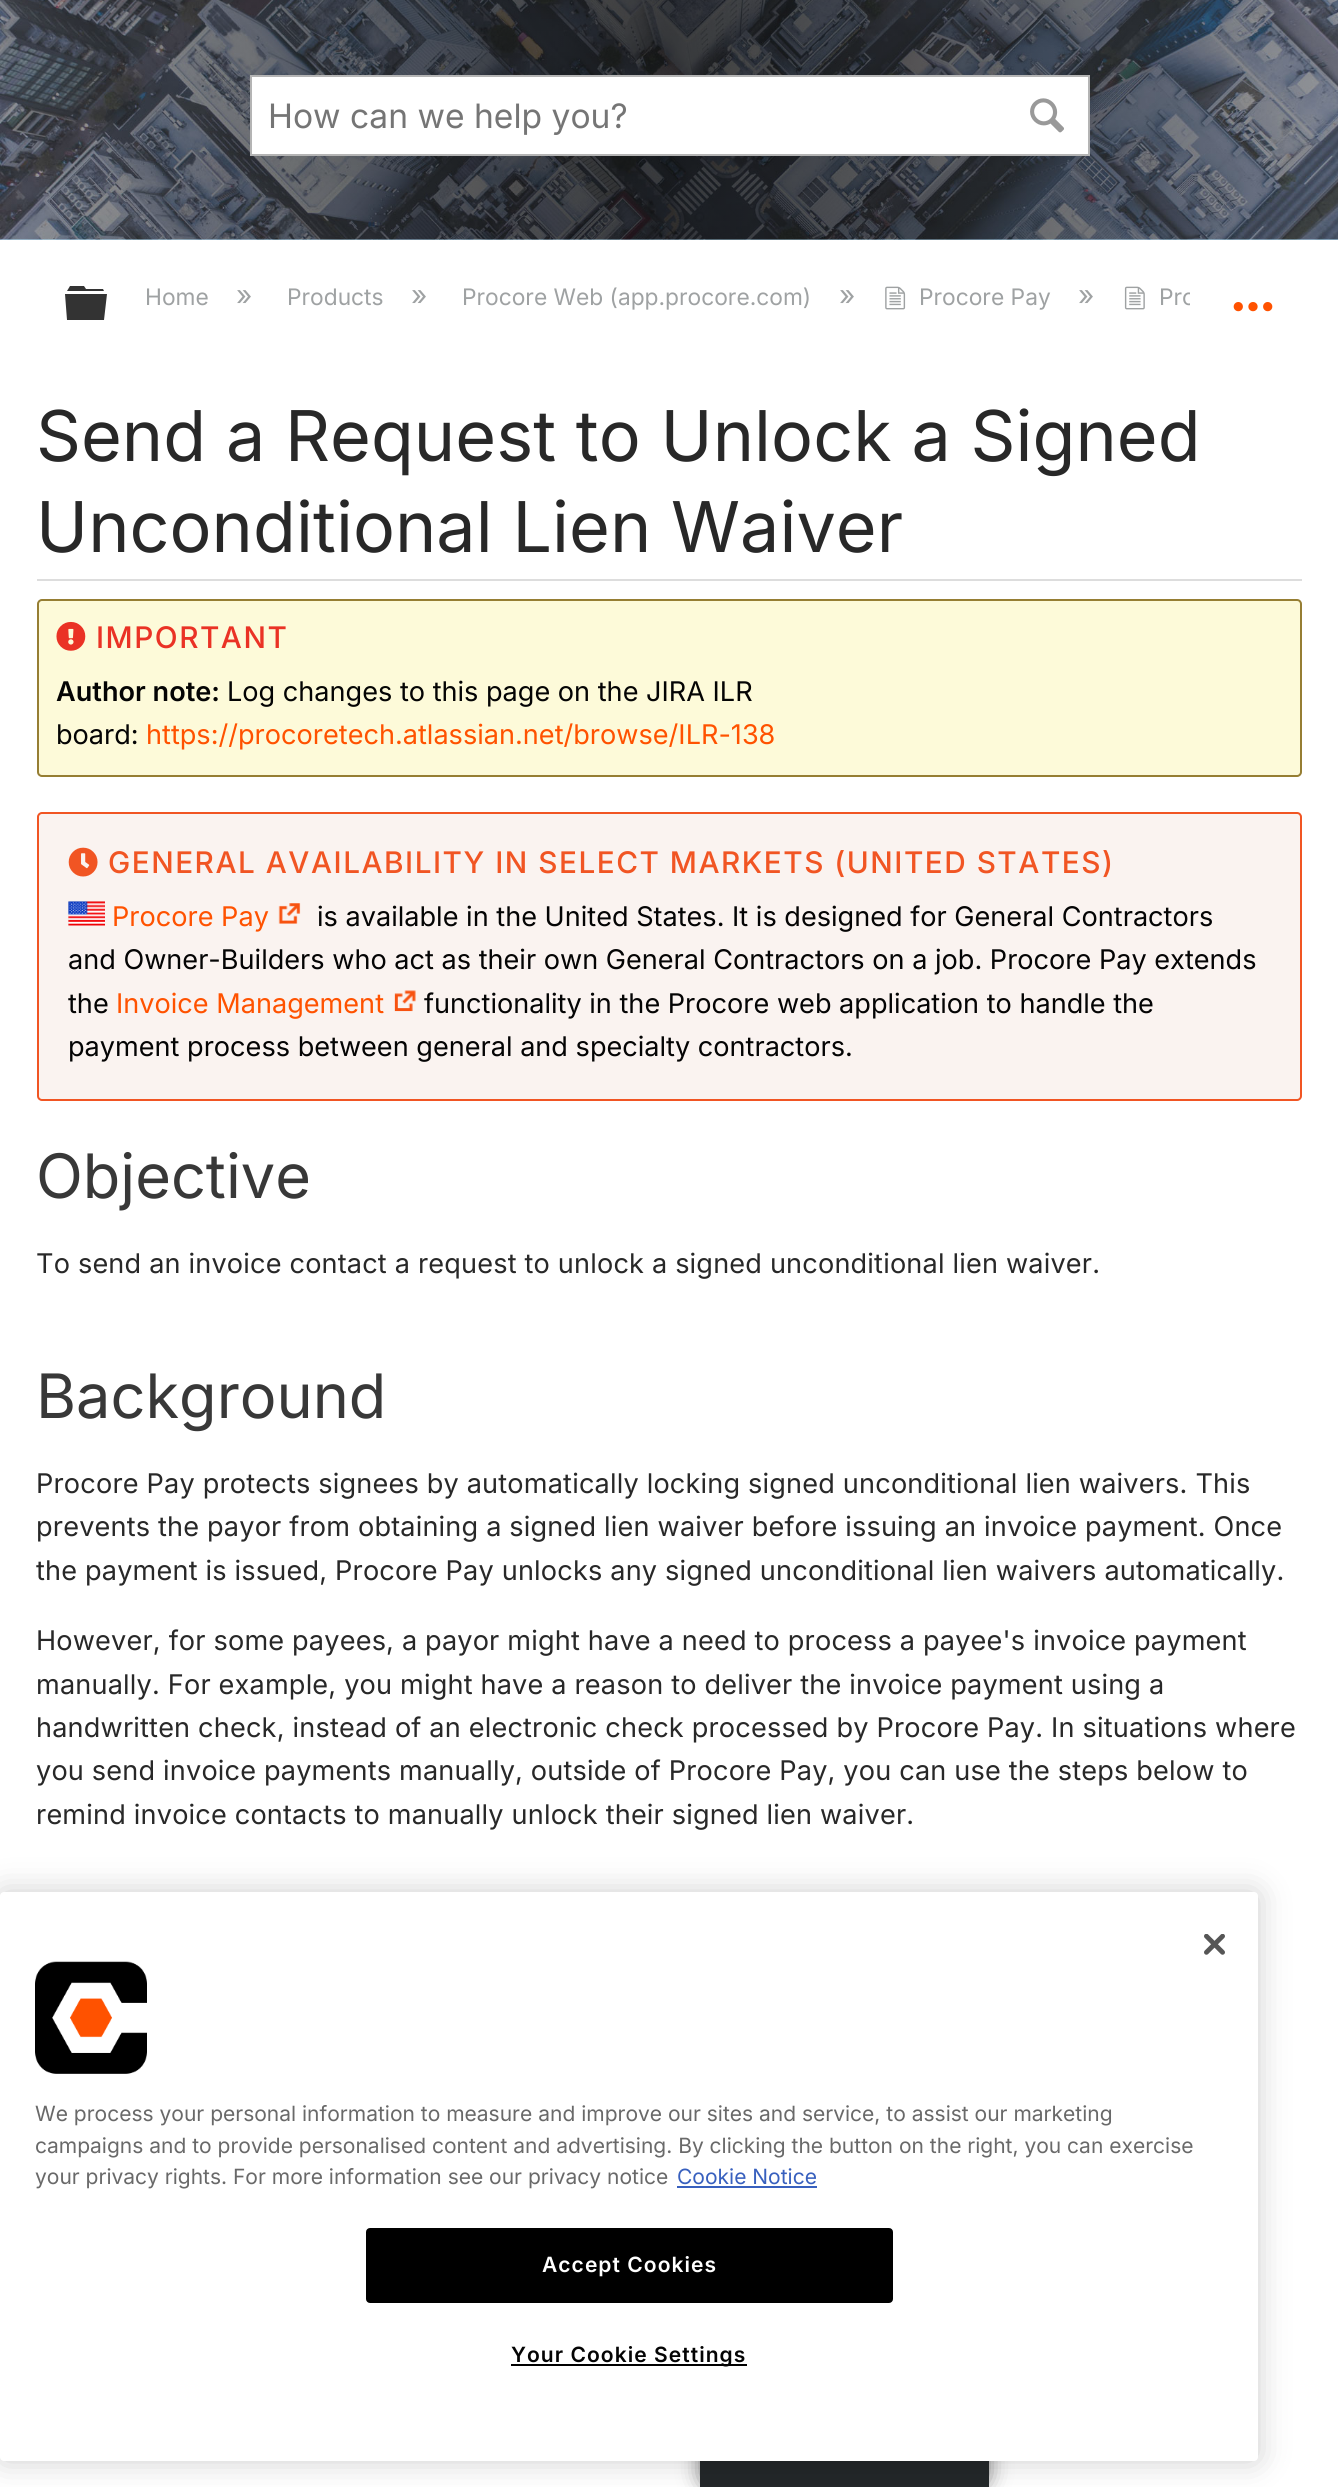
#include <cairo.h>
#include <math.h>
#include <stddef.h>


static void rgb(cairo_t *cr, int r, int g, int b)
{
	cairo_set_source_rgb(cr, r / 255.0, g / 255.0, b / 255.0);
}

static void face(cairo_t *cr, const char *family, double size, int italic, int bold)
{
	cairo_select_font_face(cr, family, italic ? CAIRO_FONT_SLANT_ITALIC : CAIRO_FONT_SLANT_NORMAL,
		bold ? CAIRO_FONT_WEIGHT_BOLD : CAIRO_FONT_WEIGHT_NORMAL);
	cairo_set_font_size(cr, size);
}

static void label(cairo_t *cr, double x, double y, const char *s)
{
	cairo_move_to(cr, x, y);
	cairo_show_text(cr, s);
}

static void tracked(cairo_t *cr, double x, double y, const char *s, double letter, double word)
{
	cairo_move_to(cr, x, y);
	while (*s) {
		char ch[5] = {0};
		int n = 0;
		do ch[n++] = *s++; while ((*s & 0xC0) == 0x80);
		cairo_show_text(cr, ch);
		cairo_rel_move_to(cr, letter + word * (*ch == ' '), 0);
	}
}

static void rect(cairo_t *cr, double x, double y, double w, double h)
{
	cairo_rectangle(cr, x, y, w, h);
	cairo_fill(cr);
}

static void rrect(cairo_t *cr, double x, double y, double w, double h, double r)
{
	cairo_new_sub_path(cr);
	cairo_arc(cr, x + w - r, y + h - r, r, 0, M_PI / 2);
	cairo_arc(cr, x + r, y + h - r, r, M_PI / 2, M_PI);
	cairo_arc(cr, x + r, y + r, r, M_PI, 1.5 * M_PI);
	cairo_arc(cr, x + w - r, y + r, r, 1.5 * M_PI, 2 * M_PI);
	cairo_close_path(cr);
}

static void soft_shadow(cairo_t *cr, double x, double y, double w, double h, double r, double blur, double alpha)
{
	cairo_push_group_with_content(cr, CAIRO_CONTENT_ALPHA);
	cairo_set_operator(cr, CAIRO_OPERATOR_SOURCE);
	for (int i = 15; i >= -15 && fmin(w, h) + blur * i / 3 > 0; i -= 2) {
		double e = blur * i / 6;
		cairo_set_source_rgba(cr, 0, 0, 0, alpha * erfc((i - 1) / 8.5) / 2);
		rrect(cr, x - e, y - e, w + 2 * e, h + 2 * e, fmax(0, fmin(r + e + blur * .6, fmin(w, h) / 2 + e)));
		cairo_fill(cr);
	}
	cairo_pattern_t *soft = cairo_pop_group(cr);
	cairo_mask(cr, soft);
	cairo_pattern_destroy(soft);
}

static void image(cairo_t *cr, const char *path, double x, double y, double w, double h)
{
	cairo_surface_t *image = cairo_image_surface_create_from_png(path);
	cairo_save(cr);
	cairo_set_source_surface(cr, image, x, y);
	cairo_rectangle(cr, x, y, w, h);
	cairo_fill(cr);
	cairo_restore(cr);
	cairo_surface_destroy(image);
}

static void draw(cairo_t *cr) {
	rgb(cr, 255, 255, 255);
	cairo_paint(cr);
	rgb(cr, 183, 229, 252);
	rect(cr, 0, 239, 1338, 1);
	image(cr, "image0.png", 0, 0, 1338, 240);
	rgb(cr, 255, 255, 255);
	cairo_rectangle(cr, 251, 76, 838, 79);
	cairo_fill_preserve(cr);
	rgb(cr, 180, 180, 180);
	cairo_stroke(cr);
	face(cr, "Inter", 33.6, 0, 0);
	rgb(cr, 117, 117, 117);
	label(cr, 268, 128, "How can we help you?");
	image(cr, "image1.png", 1030, 98, 34, 35);
	rgb(cr, 51, 51, 51);
	cairo_new_path(cr);
	cairo_move_to(cr, 65, 294);
	cairo_line_to(cr, 107, 294);
	cairo_line_to(cr, 104, 320);
	cairo_line_to(cr, 67, 320);
	cairo_close_path(cr);
	cairo_move_to(cr, 103, 289);
	cairo_line_to(cr, 104, 291);
	cairo_line_to(cr, 67, 291);
	cairo_line_to(cr, 70, 286);
	cairo_line_to(cr, 84, 286);
	cairo_line_to(cr, 86, 289);
	cairo_close_path(cr);
	cairo_fill(cr);
	face(cr, "Inter", 22.75, 0, 0);
	rgb(cr, 159, 162, 163);
	label(cr, 145, 305, "Home");
	face(cr, "Inter", 28, 0, 0);
	label(cr, 236, 305, "»");
	face(cr, "Inter", 22.75, 0, 0);
	label(cr, 287, 305, "Products");
	face(cr, "Inter", 28, 0, 0);
	label(cr, 411, 305, "»");
	face(cr, "Inter", 22.75, 0, 0);
	label(cr, 462, 305, "Procore Web (app.procore.com)");
	face(cr, "Inter", 28, 0, 0);
	label(cr, 839, 305, "»");
	image(cr, "image2.png", 885, 286, 21, 24);
	face(cr, "Inter", 22.75, 0, 0);
	label(cr, 919, 305, "Procore Pay");
	face(cr, "Inter", 28, 0, 0);
	label(cr, 1078, 305, "»");
	image(cr, "image3.png", 1124, 286, 21, 24);
	cairo_save(cr);
	cairo_rectangle(cr, 126, 275, 1064, 45);
	cairo_clip(cr);
	face(cr, "Inter", 22.75, 0, 0);
	label(cr, 1159, 305, "Pro");
	cairo_restore(cr);
	image(cr, "image4.png", 1233, 302, 40, 10);
	rgb(cr, 221, 221, 221);
	rect(cr, 37, 579, 1265, 2);
	face(cr, "Inter", 70, 0, 0);
	rgb(cr, 40, 40, 40);
	tracked(cr, 36, 461, "Send a Request to Unlock a Signed", 0.05, 0);
	tracked(cr, 36, 552, "Unconditional Lien Waiver", 0.05, 0);
	rgb(cr, 253, 250, 217);
	rrect(cr, 38, 600, 1263, 176, 4);
	cairo_fill_preserve(cr);
	rgb(cr, 150, 126, 51);
	cairo_stroke(cr);
	image(cr, "image5.png", 56, 621, 30, 30);
	face(cr, "Inter Medium", 29.75, 0, 0);
	rgb(cr, 234, 50, 37);
	tracked(cr, 96, 648, "IMPORTANT", 1.5, 0);
	face(cr, "Inter SemiBold", 27.1, 0, 0);
	rgb(cr, 4, 4, 4);
	label(cr, 56, 701, "Author note:");
	face(cr, "Inter", 27.1, 0, 0);
	label(cr, 227, 701, "Log changes to this page on the JIRA ILR");
	label(cr, 56, 744, "board:");
	rgb(cr, 255, 82, 0);
	label(cr, 146, 744, "https://procoretech.atlassian.net/browse/ILR-138");
	rgb(cr, 250, 243, 240);
	rrect(cr, 38, 813, 1263, 287, 4);
	cairo_fill_preserve(cr);
	rgb(cr, 241, 85, 35);
	cairo_stroke(cr);
	image(cr, "image6.png", 68, 847, 30, 30);
	face(cr, "Inter Medium", 29.75, 0, 0);
	tracked(cr, 108, 873, "GENERAL AVAILABILITY IN SELECT MARKETS (UNITED STATES)", 1.5, 0);
	image(cr, "image7.png", 68, 901, 37, 25);
	face(cr, "Inter", 27.1, 0, 0);
	rgb(cr, 255, 82, 0);
	label(cr, 112, 926, "Procore Pay");
	image(cr, "image8.png", 278, 903, 23, 21);
	rgb(cr, 4, 4, 4);
	label(cr, 317, 926, "is available in the United States. It is designed for General Contractors");
	label(cr, 68, 969, "and Owner-Builders who act as their own General Contractors on a job. Procore Pay extends");
	label(cr, 68, 1013, "the");
	rgb(cr, 255, 82, 0);
	label(cr, 116, 1013, "Invoice Management");
	image(cr, "image9.png", 394, 990, 22, 22);
	rgb(cr, 4, 4, 4);
	label(cr, 424, 1013, "functionality in the Procore web application to handle the");
	label(cr, 68, 1056, "payment process between general and specialty contractors.");
	face(cr, "Inter", 61.25, 0, 0);
	rgb(cr, 56, 56, 56);
	label(cr, 36, 1198, "Objective");
	face(cr, "Inter", 27.1, 0, 0);
	rgb(cr, 40, 40, 40);
	tracked(cr, 36, 1273, "To send an invoice contact a request to unlock a signed unconditional lien waiver.", 0.18, 0);
	face(cr, "Inter", 61.25, 0, 0);
	rgb(cr, 56, 56, 56);
	label(cr, 36, 1418, "Background");
	face(cr, "Inter", 27.1, 0, 0);
	rgb(cr, 40, 40, 40);
	tracked(cr, 36, 1493, "Procore Pay protects signees by automatically locking signed unconditional lien waivers. This", 0.18, 0);
	tracked(cr, 36, 1536, "prevents the payor from obtaining a signed lien waiver before issuing an invoice payment. Once", 0.18, 0);
	tracked(cr, 36, 1580, "the payment is issued, Procore Pay unlocks any signed unconditional lien waivers automatically.", 0.18, 0);
	tracked(cr, 36, 1650, "However, for some payees, a payor might have a need to process a payee's invoice payment", 0.18, 0);
	tracked(cr, 36, 1694, "manually. For example, you might have a reason to deliver the invoice payment using a", 0.18, 0);
	tracked(cr, 36, 1737, "handwritten check, instead of an electronic check processed by Procore Pay. In situations where", 0.18, 0);
	tracked(cr, 36, 1780, "you send invoice payments manually, outside of Procore Pay, you can use the steps below to", 0.18, 0);
	tracked(cr, 36, 1824, "remind invoice contacts to manually unlock their signed lien waiver.", 0.18, 0);
	rgb(cr, 0, 0, 0);
	soft_shadow(cr, 700, 2408, 289, 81, 14, 10.5, 0.5);
	rgb(cr, 35, 39, 41);
	rect(cr, 700, 2461, 289, 26);
	rgb(cr, 0, 0, 0);
	soft_shadow(cr, 0, 1892, 1258, 569, 4, 16, 0.2);
	rgb(cr, 255, 255, 255);
	rrect(cr, 0, 1892, 1258, 569, 4);
	cairo_fill(cr);
	image(cr, "image10.png", 1204, 1934, 21, 21);
	image(cr, "image11.png", 35, 1961, 112, 113);
	face(cr, "Inter", 21, 0, 0);
	rgb(cr, 105, 105, 105);
	label(cr, 35, 2121, "We process your personal information to measure and improve our sites and service, to assist our marketing");
	label(cr, 35, 2153, "campaigns and to provide personalised content and advertising. By clicking the button on the right, you can exercise");
	label(cr, 35, 2184, "your privacy rights. For more information see our privacy notice");
	rgb(cr, 56, 96, 190);
	label(cr, 677, 2184, "Cookie Notice");
	rect(cr, 677, 2186, 140, 2);
	rgb(cr, 0, 0, 0);
	rrect(cr, 367, 2229, 525, 73, 3);
	cairo_fill_preserve(cr);
	cairo_stroke(cr);
	face(cr, "Inter SemiBold", 21, 0, 0);
	rgb(cr, 255, 255, 255);
	tracked(cr, 542, 2272, "Accept Cookies", 1.05, 0);
	rgb(cr, 0, 0, 0);
	rect(cr, 511, 2364, 236, 2);
	rgb(cr, 4, 4, 4);
	tracked(cr, 511, 2362, "Your Cookie Settings", 1.05, 0);
}

int main(void) {
	cairo_surface_t *surface = cairo_image_surface_create(CAIRO_FORMAT_RGB24, 1338, 2487);
	cairo_t *cr = cairo_create(surface);
	cairo_font_options_t *options = cairo_font_options_create();
	cairo_font_options_set_hint_metrics(options, CAIRO_HINT_METRICS_OFF);
	cairo_font_options_set_hint_style(options, CAIRO_HINT_STYLE_NONE);
	cairo_set_font_options(cr, options);
	cairo_set_miter_limit(cr, 4);
	draw(cr);
	cairo_surface_write_to_png(surface, "render.png");
	cairo_font_options_destroy(options);
	cairo_destroy(cr);
	cairo_surface_destroy(surface);
	return 0;
}
